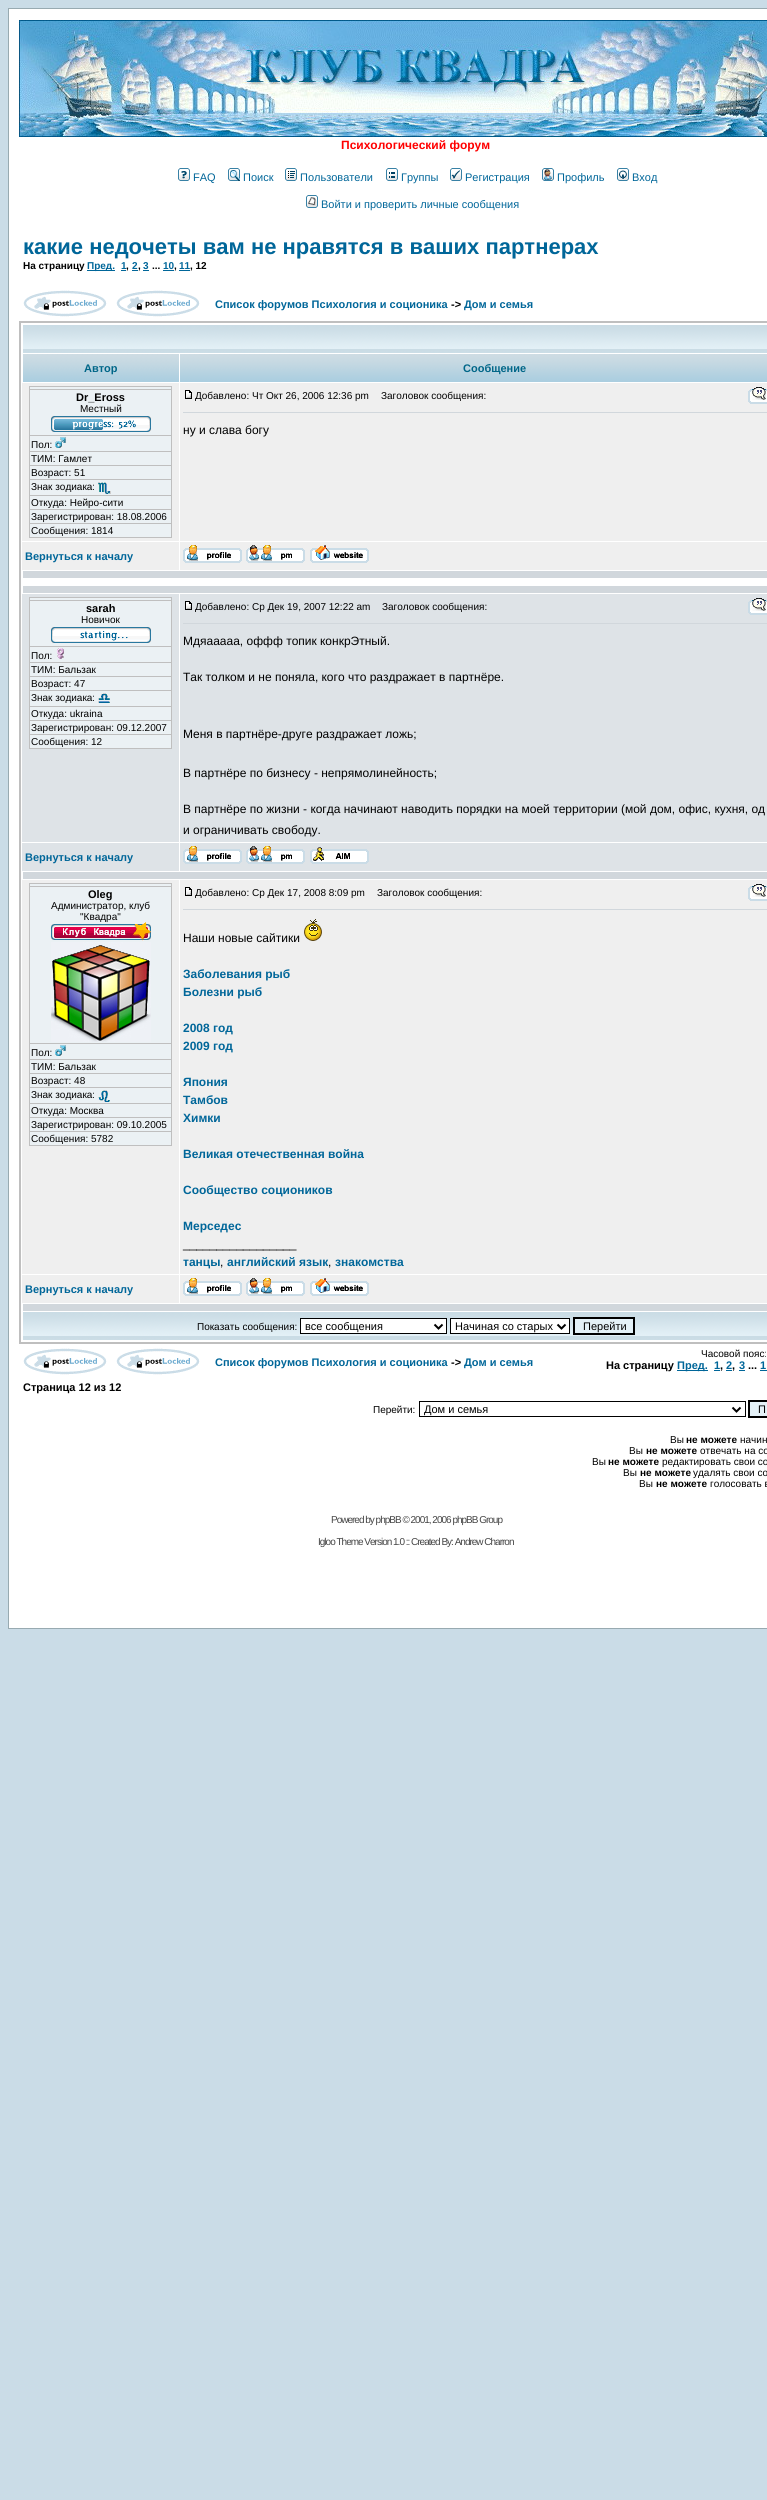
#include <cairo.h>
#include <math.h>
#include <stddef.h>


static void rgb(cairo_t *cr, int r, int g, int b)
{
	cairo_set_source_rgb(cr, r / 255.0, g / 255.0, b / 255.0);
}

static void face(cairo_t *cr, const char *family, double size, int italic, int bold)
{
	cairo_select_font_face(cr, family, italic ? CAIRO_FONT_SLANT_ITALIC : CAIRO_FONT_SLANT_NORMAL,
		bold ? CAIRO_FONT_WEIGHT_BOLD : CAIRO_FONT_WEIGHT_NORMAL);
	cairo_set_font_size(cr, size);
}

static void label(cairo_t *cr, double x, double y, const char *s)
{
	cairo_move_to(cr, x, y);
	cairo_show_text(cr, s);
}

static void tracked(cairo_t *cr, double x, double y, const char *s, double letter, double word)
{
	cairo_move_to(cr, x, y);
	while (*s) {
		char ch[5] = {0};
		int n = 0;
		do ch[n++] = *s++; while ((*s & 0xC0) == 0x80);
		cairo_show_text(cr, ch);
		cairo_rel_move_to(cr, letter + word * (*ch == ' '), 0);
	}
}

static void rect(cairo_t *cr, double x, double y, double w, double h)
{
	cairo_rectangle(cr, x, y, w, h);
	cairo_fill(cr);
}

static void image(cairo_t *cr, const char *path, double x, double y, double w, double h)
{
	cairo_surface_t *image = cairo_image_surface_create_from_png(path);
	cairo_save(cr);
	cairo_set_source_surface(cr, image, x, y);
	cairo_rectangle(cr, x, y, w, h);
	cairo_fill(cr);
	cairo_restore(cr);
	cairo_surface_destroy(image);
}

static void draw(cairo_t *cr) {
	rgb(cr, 202, 220, 231);
	cairo_paint(cr);
	rgb(cr, 255, 255, 255);
	cairo_rectangle(cr, 8.5, 8.5, 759, 1620);
	cairo_fill_preserve(cr);
	rgb(cr, 152, 170, 177);
	cairo_set_line_width(cr, 1);
	cairo_stroke(cr);
	image(cr, "image0.png", 19, 20, 748, 117);
	face(cr, "Liberation Sans", 12, 0, 1);
	rgb(cr, 255, 0, 0);
	label(cr, 341, 149, "Психологический форум");
	image(cr, "image1.png", 178, 168, 12, 13);
	face(cr, "Liberation Sans", 11, 0, 0);
	rgb(cr, 0, 102, 153);
	label(cr, 193, 181, "FAQ");
	image(cr, "image2.png", 228, 168, 12, 13);
	label(cr, 243, 181, "Поиск");
	image(cr, "image3.png", 285, 168, 12, 13);
	label(cr, 300, 181, "Пользователи");
	image(cr, "image4.png", 386, 168, 12, 13);
	label(cr, 401, 181, "Группы");
	image(cr, "image5.png", 450, 168, 12, 13);
	label(cr, 465, 181, "Регистрация");
	image(cr, "image6.png", 542, 168, 12, 13);
	label(cr, 557, 181, "Профиль");
	image(cr, "image7.png", 617, 168, 12, 13);
	label(cr, 632, 181, "Вход");
	image(cr, "image8.png", 306, 195, 12, 13);
	label(cr, 321, 208, "Войти и проверить личные сообщения");
	face(cr, "Liberation Sans", 22, 0, 1);
	label(cr, 23, 254, "какие недочеты вам не нравятся в ваших партнерах");
	face(cr, "Liberation Sans", 10, 0, 1);
	rgb(cr, 0, 0, 0);
	label(cr, 23, 269, "На страницу");
	rgb(cr, 0, 102, 153);
	rect(cr, 87, 270, 28, 1);
	label(cr, 87, 269, "Пред.");
	label(cr, 121, 269, "1");
	rgb(cr, 0, 0, 0);
	label(cr, 126, 269, ",");
	rgb(cr, 0, 102, 153);
	rect(cr, 121, 270, 5, 1);
	label(cr, 132, 269, "2");
	rgb(cr, 0, 0, 0);
	label(cr, 138, 269, ",");
	rgb(cr, 0, 102, 153);
	rect(cr, 132, 270, 6, 1);
	rect(cr, 143, 270, 6, 1);
	label(cr, 143, 269, "3");
	rgb(cr, 0, 0, 0);
	label(cr, 152, 269, "...");
	rgb(cr, 0, 102, 153);
	label(cr, 163, 269, "10");
	rgb(cr, 0, 0, 0);
	label(cr, 174, 269, ",");
	rgb(cr, 0, 102, 153);
	rect(cr, 163, 270, 11, 1);
	rect(cr, 179, 270, 11, 1);
	label(cr, 179, 269, "11");
	rgb(cr, 0, 0, 0);
	label(cr, 190, 269, ", 12");
	image(cr, "image9.png", 23, 290, 84, 27);
	image(cr, "image9.png", 116, 290, 84, 27);
	face(cr, "Liberation Sans", 11, 0, 1);
	rgb(cr, 0, 102, 153);
	label(cr, 215, 308, "Список форумов Психология и соционика");
	rgb(cr, 0, 0, 0);
	label(cr, 451, 308, "->");
	rgb(cr, 0, 102, 153);
	label(cr, 464, 308, "Дом и семья");
	cairo_rectangle(cr, 20, 322, 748, 1021);
	rgb(cr, 191, 191, 191);
	cairo_set_line_width(cr, 2);
	cairo_stroke(cr);
	image(cr, "image10.png", 23, 325, 744, 28);
	image(cr, "image11.png", 23, 354, 156, 28);
	rgb(cr, 0, 102, 136);
	label(cr, 84, 372, "Автор");
	image(cr, "image12.png", 180, 354, 587, 28);
	label(cr, 463, 372, "Сообщение");
	rgb(cr, 239, 239, 239);
	rect(cr, 22, 383, 157, 158);
	rgb(cr, 191, 191, 191);
	rect(cr, 29, 386, 143, 152);
	rgb(cr, 235, 241, 244);
	rect(cr, 30, 387, 141, 2);
	rect(cr, 30, 390, 141, 45);
	rgb(cr, 0, 0, 0);
	label(cr, 76, 401, "Dr_Eross");
	face(cr, "Liberation Sans", 10, 0, 0);
	label(cr, 80, 412, "Местный");
	image(cr, "image13.png", 51, 416, 100, 16);
	rgb(cr, 235, 241, 244);
	rect(cr, 30, 436, 141, 15);
	rgb(cr, 0, 0, 0);
	label(cr, 31, 448, "Пол:");
	image(cr, "image14.png", 55, 437, 11, 11);
	rgb(cr, 235, 241, 244);
	rect(cr, 30, 452, 141, 13);
	rgb(cr, 0, 0, 0);
	label(cr, 31, 462, "ТИМ: Гамлет");
	rgb(cr, 235, 241, 244);
	rect(cr, 30, 466, 141, 13);
	rgb(cr, 0, 0, 0);
	label(cr, 31, 476, "Возраст: 51");
	rgb(cr, 235, 241, 244);
	rect(cr, 30, 480, 141, 15);
	rgb(cr, 0, 0, 0);
	label(cr, 31, 490, "Знак зодиака:");
	image(cr, "image15.png", 98, 482, 13, 12);
	rgb(cr, 235, 241, 244);
	rect(cr, 30, 496, 141, 13);
	rgb(cr, 0, 0, 0);
	label(cr, 31, 506, "Откуда: Нейро-сити");
	rgb(cr, 235, 241, 244);
	rect(cr, 30, 510, 141, 13);
	rgb(cr, 0, 0, 0);
	label(cr, 31, 520, "Зарегистрирован: 18.08.2006");
	rgb(cr, 235, 241, 244);
	rect(cr, 30, 524, 141, 13);
	rgb(cr, 0, 0, 0);
	label(cr, 31, 534, "Сообщения: 1814");
	rgb(cr, 239, 239, 239);
	rect(cr, 180, 383, 587, 158);
	image(cr, "image16.png", 185, 390, 7, 9);
	rgb(cr, 0, 0, 0);
	label(cr, 195, 399, "Добавлено: Чт Окт 26, 2006 12:36 pm");
	label(cr, 381, 399, "Заголовок сообщения:");
	image(cr, "image17.png", 748, 387, 19, 17);
	rgb(cr, 209, 215, 220);
	rect(cr, 183, 412, 584, 1);
	face(cr, "Liberation Sans", 12, 0, 0);
	rgb(cr, 0, 0, 0);
	label(cr, 183, 434, "ну и слава богу");
	rgb(cr, 239, 239, 239);
	rect(cr, 22, 542, 157, 28);
	face(cr, "Liberation Sans", 11, 0, 1);
	rgb(cr, 0, 102, 153);
	label(cr, 25, 560, "Вернуться к началу");
	rgb(cr, 239, 239, 239);
	rect(cr, 180, 542, 587, 28);
	image(cr, "image18.png", 183, 545, 59, 18);
	image(cr, "image19.png", 246, 545, 59, 18);
	image(cr, "image20.png", 310, 545, 59, 18);
	rgb(cr, 209, 215, 220);
	rect(cr, 23, 571, 744, 7);
	rect(cr, 23, 586, 744, 7);
	rgb(cr, 222, 227, 231);
	rect(cr, 22, 594, 157, 248);
	rgb(cr, 191, 191, 191);
	rect(cr, 29, 597, 143, 152);
	rgb(cr, 235, 241, 244);
	rect(cr, 30, 598, 141, 2);
	rect(cr, 30, 601, 141, 45);
	rgb(cr, 0, 0, 0);
	label(cr, 86, 612, "sarah");
	face(cr, "Liberation Sans", 10, 0, 0);
	label(cr, 81, 623, "Новичок");
	image(cr, "image21.png", 51, 627, 100, 16);
	rgb(cr, 235, 241, 244);
	rect(cr, 30, 647, 141, 15);
	rgb(cr, 0, 0, 0);
	label(cr, 31, 659, "Пол:");
	image(cr, "image22.png", 57, 648, 7, 11);
	rgb(cr, 235, 241, 244);
	rect(cr, 30, 663, 141, 13);
	rgb(cr, 0, 0, 0);
	label(cr, 31, 673, "ТИМ: Бальзак");
	rgb(cr, 235, 241, 244);
	rect(cr, 30, 677, 141, 13);
	rgb(cr, 0, 0, 0);
	label(cr, 31, 687, "Возраст: 47");
	rgb(cr, 235, 241, 244);
	rect(cr, 30, 691, 141, 15);
	rgb(cr, 0, 0, 0);
	label(cr, 31, 701, "Знак зодиака:");
	image(cr, "image23.png", 98, 693, 12, 10);
	rgb(cr, 235, 241, 244);
	rect(cr, 30, 707, 141, 13);
	rgb(cr, 0, 0, 0);
	label(cr, 31, 717, "Откуда: ukraina");
	rgb(cr, 235, 241, 244);
	rect(cr, 30, 721, 141, 13);
	rgb(cr, 0, 0, 0);
	label(cr, 31, 731, "Зарегистрирован: 09.12.2007");
	rgb(cr, 235, 241, 244);
	rect(cr, 30, 735, 141, 13);
	rgb(cr, 0, 0, 0);
	label(cr, 31, 745, "Сообщения: 12");
	rgb(cr, 222, 227, 231);
	rect(cr, 180, 594, 587, 248);
	image(cr, "image24.png", 185, 601, 7, 9);
	rgb(cr, 0, 0, 0);
	label(cr, 195, 610, "Добавлено: Ср Дек 19, 2007 12:22 am");
	label(cr, 382, 610, "Заголовок сообщения:");
	image(cr, "image25.png", 748, 598, 19, 17);
	rgb(cr, 209, 215, 220);
	rect(cr, 183, 623, 584, 1);
	face(cr, "Liberation Sans", 12, 0, 0);
	rgb(cr, 0, 0, 0);
	label(cr, 183, 645, "Мдяааааа, оффф топик конкрЭтный.");
	label(cr, 183, 681, "Так толком и не поняла, кого что раздражает в партнёре.");
	label(cr, 183, 738, "Меня в партнёре-друге раздражает ложь;");
	label(cr, 183, 777, "В партнёре по бизнесу - непрямолинейность;");
	label(cr, 183, 813, "В партнёре по жизни - когда начинают наводить порядки на моей территории (мой дом, офис, кухня, од");
	label(cr, 183, 834, "и ограничивать свободу.");
	rgb(cr, 222, 227, 231);
	rect(cr, 22, 843, 157, 28);
	face(cr, "Liberation Sans", 11, 0, 1);
	rgb(cr, 0, 102, 153);
	label(cr, 25, 861, "Вернуться к началу");
	rgb(cr, 222, 227, 231);
	rect(cr, 180, 843, 587, 28);
	image(cr, "image26.png", 183, 846, 59, 18);
	image(cr, "image27.png", 246, 846, 59, 18);
	image(cr, "image28.png", 310, 847, 59, 17);
	rgb(cr, 209, 215, 220);
	rect(cr, 23, 872, 744, 7);
	rgb(cr, 239, 239, 239);
	rect(cr, 22, 880, 157, 394);
	rgb(cr, 191, 191, 191);
	rect(cr, 29, 883, 143, 263);
	rgb(cr, 235, 241, 244);
	rect(cr, 30, 884, 141, 2);
	rect(cr, 30, 887, 141, 156);
	rgb(cr, 0, 0, 0);
	label(cr, 88, 898, "Oleg");
	face(cr, "Liberation Sans", 10, 0, 0);
	label(cr, 51, 909, "Администратор, клуб");
	label(cr, 80, 920, "\"Квадра\"");
	image(cr, "image29.png", 51, 922, 100, 19);
	image(cr, "image30.png", 51, 942, 100, 100);
	rgb(cr, 235, 241, 244);
	rect(cr, 30, 1044, 141, 15);
	rgb(cr, 0, 0, 0);
	label(cr, 31, 1056, "Пол:");
	image(cr, "image14.png", 55, 1045, 11, 11);
	rgb(cr, 235, 241, 244);
	rect(cr, 30, 1060, 141, 13);
	rgb(cr, 0, 0, 0);
	label(cr, 31, 1070, "ТИМ: Бальзак");
	rgb(cr, 235, 241, 244);
	rect(cr, 30, 1074, 141, 13);
	rgb(cr, 0, 0, 0);
	label(cr, 31, 1084, "Возраст: 48");
	rgb(cr, 235, 241, 244);
	rect(cr, 30, 1088, 141, 15);
	rgb(cr, 0, 0, 0);
	label(cr, 31, 1098, "Знак зодиака:");
	image(cr, "image31.png", 98, 1090, 12, 12);
	rgb(cr, 235, 241, 244);
	rect(cr, 30, 1104, 141, 13);
	rgb(cr, 0, 0, 0);
	label(cr, 31, 1114, "Откуда: Москва");
	rgb(cr, 235, 241, 244);
	rect(cr, 30, 1118, 141, 13);
	rgb(cr, 0, 0, 0);
	label(cr, 31, 1128, "Зарегистрирован: 09.10.2005");
	rgb(cr, 235, 241, 244);
	rect(cr, 30, 1132, 141, 13);
	rgb(cr, 0, 0, 0);
	label(cr, 31, 1142, "Сообщения: 5782");
	rgb(cr, 239, 239, 239);
	rect(cr, 180, 880, 587, 394);
	image(cr, "image16.png", 185, 887, 7, 9);
	rgb(cr, 0, 0, 0);
	label(cr, 195, 896, "Добавлено: Ср Дек 17, 2008 8:09 pm");
	label(cr, 377, 896, "Заголовок сообщения:");
	image(cr, "image17.png", 748, 884, 19, 17);
	rgb(cr, 209, 215, 220);
	rect(cr, 183, 909, 584, 1);
	face(cr, "Liberation Sans", 12, 0, 0);
	rgb(cr, 0, 0, 0);
	label(cr, 183, 942, "Наши новые сайтики");
	image(cr, "image32.png", 304, 919, 18, 22);
	face(cr, "Liberation Sans", 12, 0, 1);
	rgb(cr, 0, 102, 153);
	label(cr, 183, 978, "Заболевания рыб");
	label(cr, 183, 996, "Болезни рыб");
	label(cr, 183, 1032, "2008 год");
	label(cr, 183, 1050, "2009 год");
	label(cr, 183, 1086, "Япония");
	label(cr, 183, 1104, "Тамбов");
	label(cr, 183, 1122, "Химки");
	label(cr, 183, 1158, "Великая отечественная война");
	label(cr, 183, 1194, "Сообщество социоников");
	label(cr, 183, 1230, "Мерседес");
	face(cr, "Liberation Sans", 12, 0, 0);
	rgb(cr, 0, 0, 0);
	label(cr, 183, 1248, "_________________");
	face(cr, "Liberation Sans", 12, 0, 1);
	rgb(cr, 0, 102, 153);
	label(cr, 183, 1266, "танцы");
	face(cr, "Liberation Sans", 12, 0, 0);
	rgb(cr, 0, 0, 0);
	label(cr, 220, 1266, ",");
	face(cr, "Liberation Sans", 12, 0, 1);
	rgb(cr, 0, 102, 153);
	label(cr, 227, 1266, "английский язык");
	face(cr, "Liberation Sans", 12, 0, 0);
	rgb(cr, 0, 0, 0);
	label(cr, 328, 1266, ",");
	face(cr, "Liberation Sans", 12, 0, 1);
	rgb(cr, 0, 102, 153);
	label(cr, 335, 1266, "знакомства");
	rgb(cr, 239, 239, 239);
	rect(cr, 22, 1275, 157, 28);
	face(cr, "Liberation Sans", 11, 0, 1);
	rgb(cr, 0, 102, 153);
	label(cr, 25, 1293, "Вернуться к началу");
	rgb(cr, 239, 239, 239);
	rect(cr, 180, 1275, 587, 28);
	image(cr, "image18.png", 183, 1278, 59, 18);
	image(cr, "image19.png", 246, 1278, 59, 18);
	image(cr, "image20.png", 310, 1278, 59, 18);
	rgb(cr, 209, 215, 220);
	rect(cr, 23, 1304, 744, 7);
	image(cr, "image10.png", 23, 1312, 744, 28);
	face(cr, "Liberation Sans", 10, 0, 0);
	rgb(cr, 0, 0, 0);
	label(cr, 197, 1330, "Показать сообщения:");
	rgb(cr, 255, 255, 255);
	cairo_rectangle(cr, 300.5, 1318.5, 146, 15);
	cairo_fill_preserve(cr);
	rgb(cr, 0, 0, 0);
	cairo_set_line_width(cr, 1);
	cairo_stroke(cr);
	cairo_new_path(cr);
	cairo_move_to(cr, 434.5, 1324.5);
	cairo_line_to(cr, 438.5, 1328.5);
	cairo_line_to(cr, 442.5, 1324.5);
	cairo_set_line_width(cr, 2);
	cairo_stroke(cr);
	face(cr, "Liberation Sans", 11, 0, 0);
	label(cr, 305, 1330, "все сообщения");
	rgb(cr, 255, 255, 255);
	cairo_rectangle(cr, 450.5, 1318.5, 119, 15);
	cairo_fill_preserve(cr);
	rgb(cr, 0, 0, 0);
	cairo_set_line_width(cr, 1);
	cairo_stroke(cr);
	cairo_new_path(cr);
	cairo_move_to(cr, 557.5, 1324.5);
	cairo_line_to(cr, 561.5, 1328.5);
	cairo_line_to(cr, 565.5, 1324.5);
	cairo_set_line_width(cr, 2);
	cairo_stroke(cr);
	label(cr, 455, 1330, "Начиная со старых");
	rgb(cr, 228, 241, 247);
	cairo_rectangle(cr, 574, 1318, 60, 16);
	cairo_fill_preserve(cr);
	rgb(cr, 0, 0, 0);
	cairo_stroke(cr);
	label(cr, 583, 1330, "Перейти");
	image(cr, "image9.png", 23, 1348, 84, 27);
	image(cr, "image9.png", 116, 1348, 84, 27);
	face(cr, "Liberation Sans", 11, 0, 1);
	rgb(cr, 0, 102, 153);
	label(cr, 215, 1366, "Список форумов Психология и соционика");
	rgb(cr, 0, 0, 0);
	label(cr, 451, 1366, "->");
	rgb(cr, 0, 102, 153);
	label(cr, 464, 1366, "Дом и семья");
	face(cr, "Liberation Sans", 10, 0, 0);
	rgb(cr, 0, 0, 0);
	label(cr, 701, 1357, "Часовой пояс:");
	face(cr, "Liberation Sans", 11, 0, 1);
	label(cr, 606, 1369, "На страницу");
	rgb(cr, 0, 102, 153);
	rect(cr, 677, 1370, 31, 1);
	label(cr, 677, 1369, "Пред.");
	label(cr, 714, 1369, "1");
	rgb(cr, 0, 0, 0);
	label(cr, 720, 1369, ",");
	rgb(cr, 0, 102, 153);
	rect(cr, 714, 1370, 6, 1);
	label(cr, 726, 1369, "2");
	rgb(cr, 0, 0, 0);
	label(cr, 732, 1369, ",");
	rgb(cr, 0, 102, 153);
	rect(cr, 726, 1370, 6, 1);
	rect(cr, 739, 1370, 6, 1);
	label(cr, 739, 1369, "3");
	rgb(cr, 0, 0, 0);
	label(cr, 748, 1369, "...");
	rgb(cr, 0, 102, 153);
	rect(cr, 760, 1370, 7, 1);
	label(cr, 760, 1369, "1");
	rgb(cr, 0, 0, 0);
	label(cr, 23, 1391, "Страница 12 из 12");
	face(cr, "Liberation Sans", 10, 0, 0);
	label(cr, 373, 1413, "Перейти:");
	cairo_rectangle(cr, 419.5, 1401.5, 326, 15);
	cairo_set_line_width(cr, 1);
	cairo_stroke(cr);
	cairo_new_path(cr);
	cairo_move_to(cr, 732.5, 1407.5);
	cairo_line_to(cr, 736.5, 1411.5);
	cairo_line_to(cr, 740.5, 1407.5);
	cairo_set_line_width(cr, 2);
	cairo_stroke(cr);
	cairo_save(cr);
	cairo_rectangle(cr, 424, 1402, 305, 14);
	cairo_clip(cr);
	face(cr, "Liberation Sans", 11, 0, 0);
	label(cr, 424, 1413, "Дом и семья");
	cairo_restore(cr);
	rgb(cr, 228, 241, 247);
	cairo_rectangle(cr, 749, 1401, 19, 16);
	cairo_fill_preserve(cr);
	rgb(cr, 0, 0, 0);
	cairo_stroke(cr);
	face(cr, "Liberation Sans", 11, 0, 0);
	label(cr, 758, 1413, "П");
	face(cr, "Liberation Sans", 10, 0, 0);
	label(cr, 670, 1443, "Вы");
	face(cr, "Liberation Sans", 10, 0, 1);
	label(cr, 686, 1443, "не можете");
	face(cr, "Liberation Sans", 10, 0, 0);
	label(cr, 740, 1443, "начин");
	label(cr, 629, 1454, "Вы");
	face(cr, "Liberation Sans", 10, 0, 1);
	label(cr, 646, 1454, "не можете");
	face(cr, "Liberation Sans", 10, 0, 0);
	label(cr, 700, 1454, "отвечать на со");
	label(cr, 592, 1465, "Вы");
	face(cr, "Liberation Sans", 10, 0, 1);
	label(cr, 608, 1465, "не можете");
	face(cr, "Liberation Sans", 10, 0, 0);
	label(cr, 662, 1465, "редактировать свои со");
	label(cr, 623, 1476, "Вы");
	face(cr, "Liberation Sans", 10, 0, 1);
	label(cr, 640, 1476, "не можете");
	face(cr, "Liberation Sans", 10, 0, 0);
	label(cr, 693, 1476, "удалять свои со");
	label(cr, 639, 1487, "Вы");
	face(cr, "Liberation Sans", 10, 0, 1);
	label(cr, 656, 1487, "не можете");
	face(cr, "Liberation Sans", 10, 0, 0);
	label(cr, 710, 1487, "голосовать в");
	rgb(cr, 68, 68, 68);
	tracked(cr, 331, 1523, "Powered by phpBB © 2001, 2006 phpBB Group", -1, 0);
	tracked(cr, 318, 1545, "Igloo Theme Version 1.0 :: Created By: Andrew Charron", -1, 0);
}

int main(void) {
	cairo_surface_t *surface = cairo_image_surface_create(CAIRO_FORMAT_RGB24, 767, 2500);
	cairo_t *cr = cairo_create(surface);
	cairo_font_options_t *options = cairo_font_options_create();
	cairo_font_options_set_hint_metrics(options, CAIRO_HINT_METRICS_OFF);
	cairo_font_options_set_hint_style(options, CAIRO_HINT_STYLE_NONE);
	cairo_set_font_options(cr, options);
	cairo_set_miter_limit(cr, 4);
	draw(cr);
	cairo_surface_write_to_png(surface, "render.png");
	cairo_font_options_destroy(options);
	cairo_destroy(cr);
	cairo_surface_destroy(surface);
	return 0;
}
